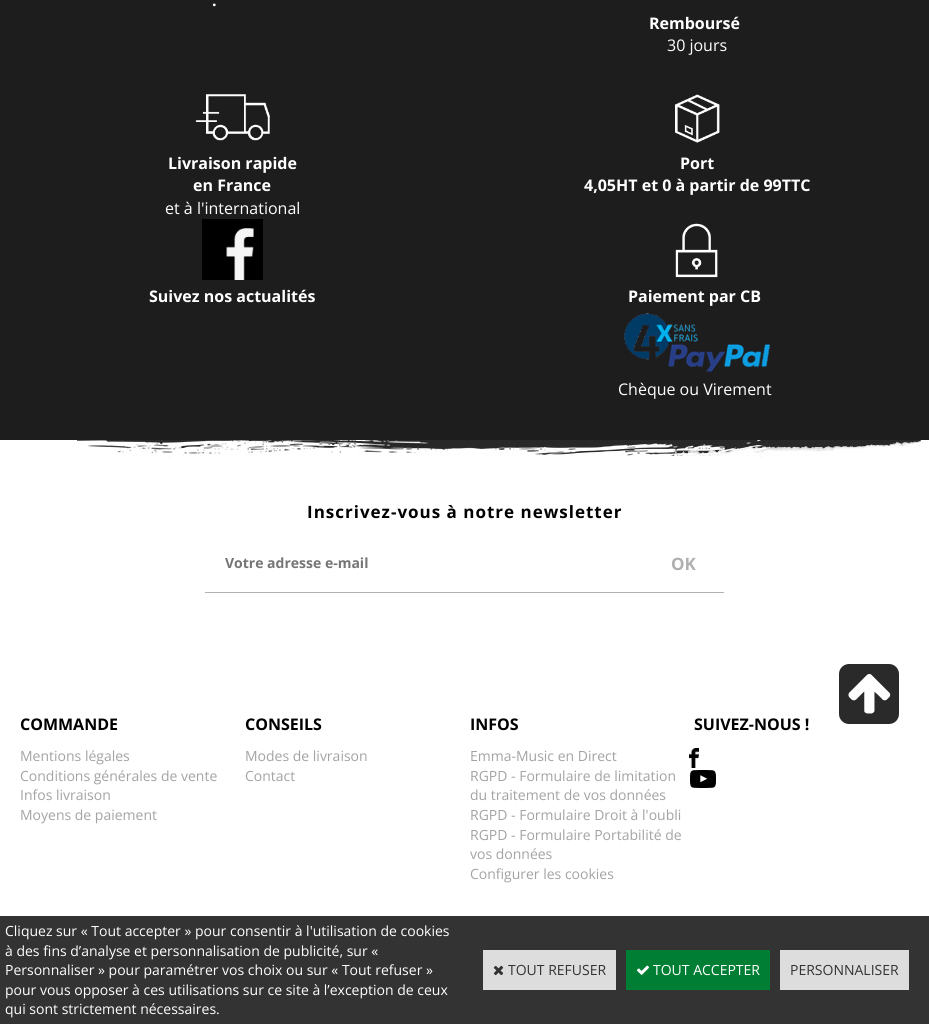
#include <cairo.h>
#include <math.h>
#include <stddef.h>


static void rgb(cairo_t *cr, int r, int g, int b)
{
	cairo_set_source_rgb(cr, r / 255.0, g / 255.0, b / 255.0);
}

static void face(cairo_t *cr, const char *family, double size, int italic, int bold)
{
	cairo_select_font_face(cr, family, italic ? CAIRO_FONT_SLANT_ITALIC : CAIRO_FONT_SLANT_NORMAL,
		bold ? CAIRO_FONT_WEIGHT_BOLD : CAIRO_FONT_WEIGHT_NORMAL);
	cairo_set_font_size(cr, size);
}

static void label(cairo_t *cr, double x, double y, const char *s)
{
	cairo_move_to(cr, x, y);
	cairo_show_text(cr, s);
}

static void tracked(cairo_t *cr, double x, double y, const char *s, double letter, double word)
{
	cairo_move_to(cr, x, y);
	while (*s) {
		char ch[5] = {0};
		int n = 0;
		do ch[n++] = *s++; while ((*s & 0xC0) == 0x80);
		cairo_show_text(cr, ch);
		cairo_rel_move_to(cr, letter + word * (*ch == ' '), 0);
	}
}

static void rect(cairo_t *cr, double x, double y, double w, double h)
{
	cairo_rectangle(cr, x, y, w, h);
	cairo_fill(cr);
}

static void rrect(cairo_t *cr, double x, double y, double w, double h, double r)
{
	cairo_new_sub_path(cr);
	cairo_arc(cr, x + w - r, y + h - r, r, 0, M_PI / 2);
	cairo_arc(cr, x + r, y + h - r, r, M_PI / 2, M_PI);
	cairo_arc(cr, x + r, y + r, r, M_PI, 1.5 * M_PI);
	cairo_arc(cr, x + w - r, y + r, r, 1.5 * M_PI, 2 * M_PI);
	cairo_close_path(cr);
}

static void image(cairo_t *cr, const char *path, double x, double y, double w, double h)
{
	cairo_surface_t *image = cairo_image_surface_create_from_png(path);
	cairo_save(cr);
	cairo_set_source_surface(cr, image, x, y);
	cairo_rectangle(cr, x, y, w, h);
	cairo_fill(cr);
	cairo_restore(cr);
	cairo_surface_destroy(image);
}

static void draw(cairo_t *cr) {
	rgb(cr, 255, 255, 255);
	cairo_paint(cr);
	rgb(cr, 29, 29, 29);
	rect(cr, 0, 0, 929, 440);
	face(cr, "Open Sans", 16, 0, 1);
	rgb(cr, 255, 255, 255);
	label(cr, 212, 6, ".");
	label(cr, 649, 29, "Remboursé");
	face(cr, "Open Sans", 16, 0, 0);
	label(cr, 667, 51, "30 jours");
	image(cr, "image0.png", 195, 94, 75, 47);
	face(cr, "Open Sans", 16, 0, 1);
	label(cr, 168, 169, "Livraison rapide");
	label(cr, 193, 191, "en France");
	face(cr, "Open Sans", 16, 0, 0);
	label(cr, 165, 214, "et à l'international");
	image(cr, "image1.png", 675, 94, 45, 49);
	face(cr, "Open Sans", 16, 0, 1);
	label(cr, 680, 169, "Port");
	label(cr, 584, 191, "4,05HT et 0 à partir de 99TTC");
	image(cr, "image2.png", 202, 219, 61, 61);
	label(cr, 149, 302, "Suivez nos actualités");
	image(cr, "image3.png", 675, 223, 43, 55);
	label(cr, 628, 302, "Paiement par CB");
	image(cr, "image4.png", 623, 313, 148, 59);
	face(cr, "Open Sans", 16, 0, 0);
	label(cr, 618, 395, "Chèque ou Virement");
	image(cr, "image5.png", 77, 440, 848, 18);
	face(cr, "Open Sans", 17, 0, 1);
	rgb(cr, 0, 0, 0);
	tracked(cr, 307, 518, "Inscrivez-vous à notre newsletter", 1, 0);
	rgb(cr, 178, 178, 178);
	rect(cr, 205, 592, 519, 1);
	face(cr, "Open Sans", 14, 0, 1);
	rgb(cr, 117, 117, 117);
	label(cr, 225, 568, "Votre adresse e-mail");
	face(cr, "Open Sans", 17, 0, 1);
	rgb(cr, 176, 176, 176);
	label(cr, 671, 570, "OK");
	face(cr, "Open Sans", 16, 0, 1);
	rgb(cr, 0, 0, 0);
	label(cr, 20, 730, "COMMANDE");
	face(cr, "Open Sans", 14, 0, 0);
	rgb(cr, 163, 163, 163);
	label(cr, 20, 761, "Mentions légales");
	label(cr, 20, 781, "Conditions générales de vente");
	label(cr, 20, 800, "Infos livraison");
	label(cr, 20, 820, "Moyens de paiement");
	face(cr, "Open Sans", 16, 0, 1);
	rgb(cr, 0, 0, 0);
	label(cr, 245, 730, "CONSEILS");
	face(cr, "Open Sans", 14, 0, 0);
	rgb(cr, 163, 163, 163);
	label(cr, 245, 761, "Modes de livraison");
	label(cr, 245, 781, "Contact");
	face(cr, "Open Sans", 16, 0, 1);
	rgb(cr, 0, 0, 0);
	label(cr, 470, 730, "INFOS");
	face(cr, "Open Sans", 14, 0, 0);
	rgb(cr, 163, 163, 163);
	label(cr, 470, 761, "Emma-Music en Direct");
	label(cr, 470, 781, "RGPD - Formulaire de limitation");
	label(cr, 470, 800, "du traitement de vos données");
	label(cr, 470, 820, "RGPD - Formulaire Droit à l'oubli");
	label(cr, 470, 840, "RGPD - Formulaire Portabilité de");
	label(cr, 470, 859, "vos données");
	label(cr, 470, 879, "Configurer les cookies");
	face(cr, "Open Sans", 16, 0, 1);
	rgb(cr, 0, 0, 0);
	label(cr, 694, 730, "SUIVEZ-NOUS !");
	image(cr, "image6.png", 689, 748, 10, 20);
	image(cr, "image7.png", 690, 770, 26, 18);
	rgb(cr, 42, 42, 42);
	rrect(cr, 839, 664, 60, 60, 10);
	cairo_fill(cr);
	image(cr, "image8.png", 848, 674, 43, 40);
	rgb(cr, 51, 51, 51);
	rect(cr, 0, 916, 929, 108);
	face(cr, "Open Sans", 14, 0, 0);
	rgb(cr, 255, 255, 255);
	label(cr, 5, 936, "Cliquez sur « Tout accepter » pour consentir à l'utilisation de cookies");
	label(cr, 5, 956, "à des fins d’analyse et personnalisation de publicité, sur «");
	label(cr, 5, 975, "Personnaliser » pour paramétrer vos choix ou sur « Tout refuser »");
	label(cr, 5, 995, "pour vous opposer à ces utilisations sur ce site à l’exception de ceux");
	label(cr, 5, 1014, "qui sont strictement nécessaires.");
	rgb(cr, 221, 221, 221);
	rect(cr, 483, 950, 133, 40);
	image(cr, "image9.png", 493, 965, 11, 11);
	rgb(cr, 51, 51, 51);
	label(cr, 508, 975, "TOUT REFUSER");
	rgb(cr, 0, 126, 51);
	rect(cr, 626, 950, 144, 40);
	image(cr, "image10.png", 637, 965, 12, 10);
	rgb(cr, 255, 255, 255);
	label(cr, 653, 975, "TOUT ACCEPTER");
	rgb(cr, 221, 221, 221);
	rect(cr, 780, 950, 129, 40);
	rgb(cr, 51, 51, 51);
	label(cr, 790, 975, "PERSONNALISER");
}

int main(void) {
	cairo_surface_t *surface = cairo_image_surface_create(CAIRO_FORMAT_RGB24, 929, 1024);
	cairo_t *cr = cairo_create(surface);
	cairo_font_options_t *options = cairo_font_options_create();
	cairo_font_options_set_hint_metrics(options, CAIRO_HINT_METRICS_OFF);
	cairo_font_options_set_hint_style(options, CAIRO_HINT_STYLE_NONE);
	cairo_set_font_options(cr, options);
	cairo_set_miter_limit(cr, 4);
	draw(cr);
	cairo_surface_write_to_png(surface, "render.png");
	cairo_font_options_destroy(options);
	cairo_destroy(cr);
	cairo_surface_destroy(surface);
	return 0;
}
